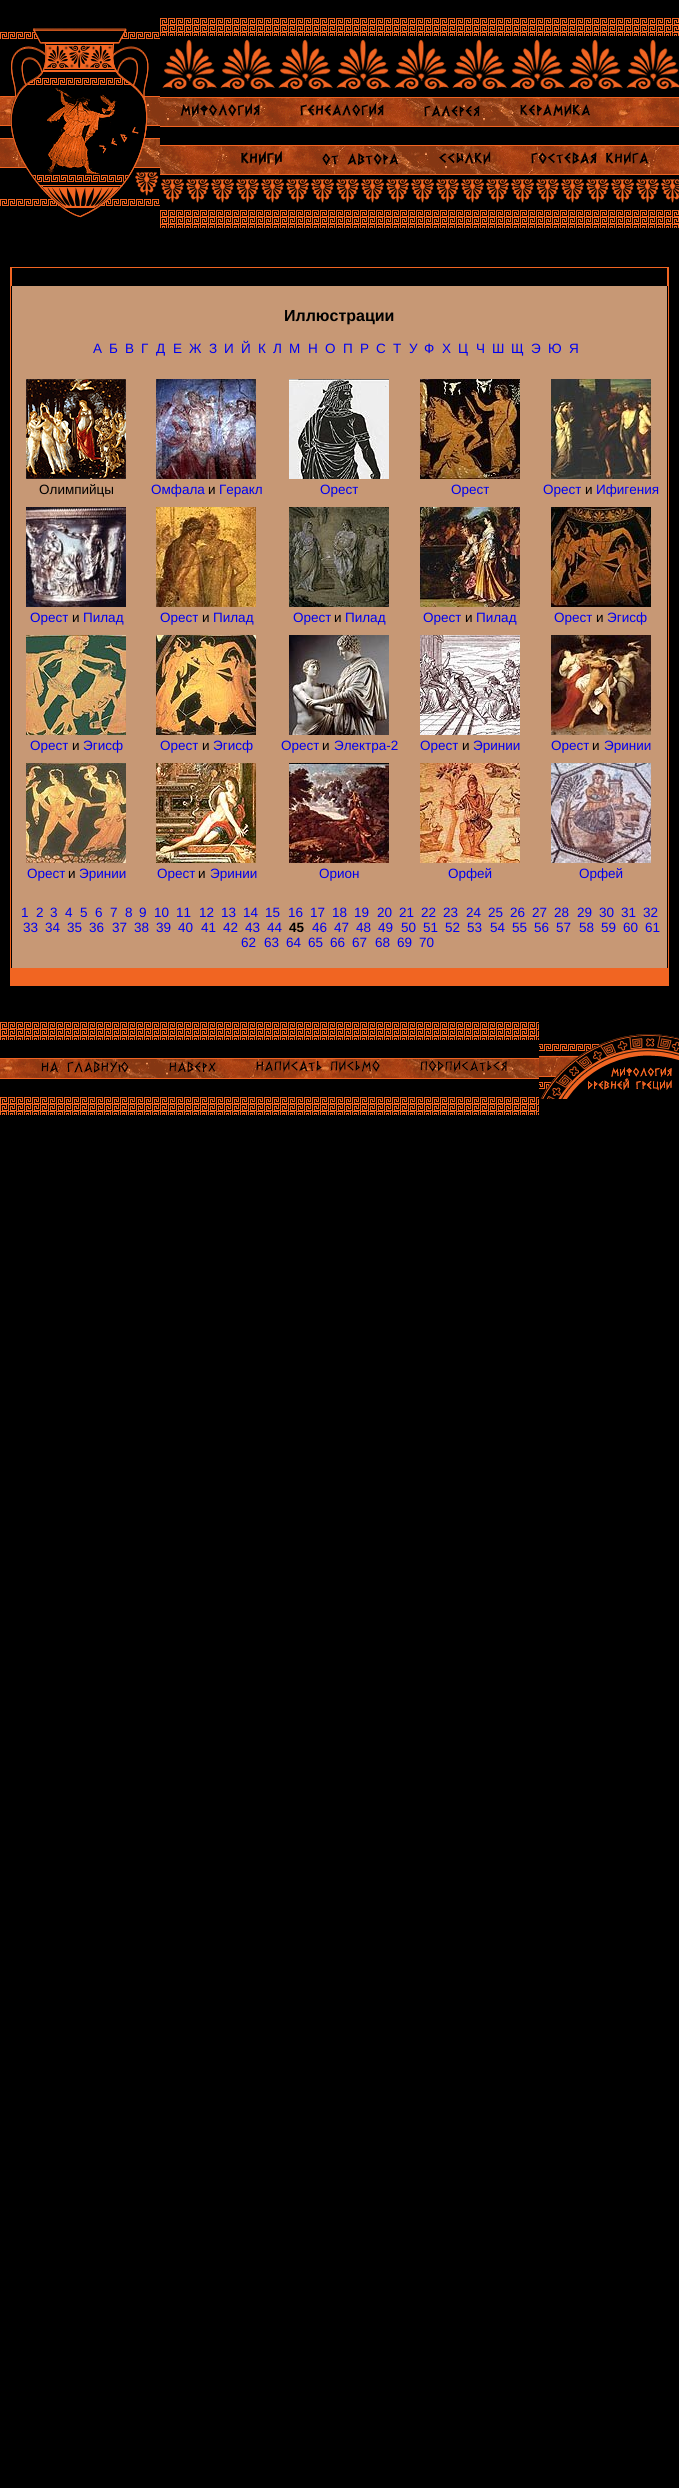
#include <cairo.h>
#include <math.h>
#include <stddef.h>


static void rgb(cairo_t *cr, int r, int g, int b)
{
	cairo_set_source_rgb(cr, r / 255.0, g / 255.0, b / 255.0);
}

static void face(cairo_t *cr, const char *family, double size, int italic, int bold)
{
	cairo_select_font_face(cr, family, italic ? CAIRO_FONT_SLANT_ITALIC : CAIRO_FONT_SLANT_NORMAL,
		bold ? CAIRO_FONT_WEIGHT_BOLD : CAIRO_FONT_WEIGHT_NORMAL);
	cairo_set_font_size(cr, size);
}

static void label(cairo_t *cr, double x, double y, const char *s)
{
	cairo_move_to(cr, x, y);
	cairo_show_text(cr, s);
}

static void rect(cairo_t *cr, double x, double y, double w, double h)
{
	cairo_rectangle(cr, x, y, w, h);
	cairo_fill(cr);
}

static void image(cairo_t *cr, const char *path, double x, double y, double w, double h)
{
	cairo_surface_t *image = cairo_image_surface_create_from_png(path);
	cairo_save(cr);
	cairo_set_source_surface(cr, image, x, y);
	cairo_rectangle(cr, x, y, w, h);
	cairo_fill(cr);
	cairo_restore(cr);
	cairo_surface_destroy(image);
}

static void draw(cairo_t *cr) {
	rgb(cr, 0, 0, 0);
	cairo_paint(cr);
	image(cr, "image0.png", 0, 28, 160, 190);
	image(cr, "image1.png", 160, 18, 519, 18);
	image(cr, "image2.png", 162, 39, 517, 58);
	image(cr, "image3.png", 160, 97, 519, 30);
	image(cr, "image4.png", 180, 103, 80, 14);
	image(cr, "image5.png", 300, 103, 84, 14);
	image(cr, "image6.png", 424, 105, 56, 12);
	image(cr, "image7.png", 520, 103, 70, 14);
	image(cr, "image8.png", 160, 145, 519, 30);
	image(cr, "image9.png", 241, 151, 41, 14);
	image(cr, "image10.png", 322, 153, 77, 12);
	image(cr, "image11.png", 439, 151, 52, 14);
	image(cr, "image12.png", 531, 151, 118, 14);
	image(cr, "image13.png", 161, 179, 518, 24);
	image(cr, "image1.png", 160, 210, 519, 18);
	rgb(cr, 241, 101, 34);
	rect(cr, 10, 267, 659, 1);
	rect(cr, 10, 268, 2, 18);
	rect(cr, 667, 268, 2, 18);
	rect(cr, 10, 286, 1, 700);
	rgb(cr, 199, 152, 117);
	rect(cr, 12, 286, 655, 682);
	face(cr, "Liberation Sans", 16, 0, 1);
	rgb(cr, 0, 0, 0);
	label(cr, 284, 321, "Иллюстрации");
	face(cr, "Liberation Sans", 13.5, 0, 0);
	rgb(cr, 0, 0, 238);
	label(cr, 93, 353, "А");
	label(cr, 109, 353, "Б");
	label(cr, 125, 353, "В");
	label(cr, 141, 353, "Г");
	label(cr, 156, 353, "Д");
	label(cr, 173, 353, "Е");
	label(cr, 189, 353, "Ж");
	label(cr, 209, 353, "З");
	label(cr, 224, 353, "И");
	label(cr, 241, 353, "Й");
	label(cr, 258, 353, "К");
	label(cr, 273, 353, "Л");
	label(cr, 289, 353, "М");
	label(cr, 308, 353, "Н");
	label(cr, 325, 353, "О");
	label(cr, 343, 353, "П");
	label(cr, 360, 353, "Р");
	label(cr, 376, 353, "С");
	label(cr, 393, 353, "Т");
	label(cr, 409, 353, "У");
	label(cr, 424, 353, "Ф");
	label(cr, 442, 353, "Х");
	label(cr, 458, 353, "Ц");
	label(cr, 476, 353, "Ч");
	label(cr, 492, 353, "Ш");
	label(cr, 511, 353, "Щ");
	label(cr, 531, 353, "Э");
	label(cr, 548, 353, "Ю");
	label(cr, 569, 353, "Я");
	image(cr, "image14.png", 26, 379, 100, 100);
	rgb(cr, 0, 0, 0);
	label(cr, 39, 494, "Олимпийцы");
	image(cr, "image15.png", 156, 379, 100, 100);
	rgb(cr, 0, 0, 238);
	label(cr, 151, 494, "Омфала");
	rgb(cr, 0, 0, 0);
	label(cr, 208, 494, "и");
	rgb(cr, 0, 0, 238);
	label(cr, 219, 494, "Геракл");
	image(cr, "image16.png", 289, 379, 100, 100);
	label(cr, 320, 494, "Орест");
	image(cr, "image17.png", 420, 379, 100, 100);
	label(cr, 451, 494, "Орест");
	image(cr, "image18.png", 551, 379, 100, 100);
	label(cr, 543, 494, "Орест");
	rgb(cr, 0, 0, 0);
	label(cr, 585, 494, "и");
	rgb(cr, 0, 0, 238);
	label(cr, 596, 494, "Ифигения");
	image(cr, "image19.png", 26, 507, 100, 100);
	label(cr, 30, 622, "Орест");
	rgb(cr, 0, 0, 0);
	label(cr, 72, 622, "и");
	rgb(cr, 0, 0, 238);
	label(cr, 83, 622, "Пилад");
	image(cr, "image20.png", 156, 507, 100, 100);
	label(cr, 160, 622, "Орест");
	rgb(cr, 0, 0, 0);
	label(cr, 202, 622, "и");
	rgb(cr, 0, 0, 238);
	label(cr, 213, 622, "Пилад");
	image(cr, "image21.png", 289, 507, 100, 100);
	label(cr, 293, 622, "Орест");
	rgb(cr, 0, 0, 0);
	label(cr, 334, 622, "и");
	rgb(cr, 0, 0, 238);
	label(cr, 345, 622, "Пилад");
	image(cr, "image22.png", 420, 507, 100, 100);
	label(cr, 423, 622, "Орест");
	rgb(cr, 0, 0, 0);
	label(cr, 465, 622, "и");
	rgb(cr, 0, 0, 238);
	label(cr, 476, 622, "Пилад");
	image(cr, "image23.png", 551, 507, 100, 100);
	label(cr, 554, 622, "Орест");
	rgb(cr, 0, 0, 0);
	label(cr, 596, 622, "и");
	rgb(cr, 0, 0, 238);
	label(cr, 607, 622, "Эгисф");
	image(cr, "image24.png", 26, 635, 100, 100);
	label(cr, 30, 750, "Орест");
	rgb(cr, 0, 0, 0);
	label(cr, 72, 750, "и");
	rgb(cr, 0, 0, 238);
	label(cr, 83, 750, "Эгисф");
	image(cr, "image25.png", 156, 635, 100, 100);
	label(cr, 160, 750, "Орест");
	rgb(cr, 0, 0, 0);
	label(cr, 202, 750, "и");
	rgb(cr, 0, 0, 238);
	label(cr, 213, 750, "Эгисф");
	image(cr, "image26.png", 289, 635, 100, 100);
	label(cr, 281, 750, "Орест");
	rgb(cr, 0, 0, 0);
	label(cr, 322, 750, "и");
	rgb(cr, 0, 0, 238);
	label(cr, 334, 750, "Электра-2");
	image(cr, "image27.png", 420, 635, 100, 100);
	label(cr, 420, 750, "Орест");
	rgb(cr, 0, 0, 0);
	label(cr, 462, 750, "и");
	rgb(cr, 0, 0, 238);
	label(cr, 473, 750, "Эринии");
	image(cr, "image28.png", 551, 635, 100, 100);
	label(cr, 551, 750, "Орест");
	rgb(cr, 0, 0, 0);
	label(cr, 592, 750, "и");
	rgb(cr, 0, 0, 238);
	label(cr, 604, 750, "Эринии");
	image(cr, "image29.png", 26, 763, 100, 100);
	label(cr, 27, 878, "Орест");
	rgb(cr, 0, 0, 0);
	label(cr, 68, 878, "и");
	rgb(cr, 0, 0, 238);
	label(cr, 79, 878, "Эринии");
	image(cr, "image30.png", 156, 763, 100, 100);
	label(cr, 157, 878, "Орест");
	rgb(cr, 0, 0, 0);
	label(cr, 198, 878, "и");
	rgb(cr, 0, 0, 238);
	label(cr, 210, 878, "Эринии");
	image(cr, "image31.png", 289, 763, 100, 100);
	label(cr, 319, 878, "Орион");
	image(cr, "image32.png", 420, 763, 100, 100);
	label(cr, 448, 878, "Орфей");
	image(cr, "image33.png", 551, 763, 100, 100);
	label(cr, 579, 878, "Орфей");
	label(cr, 21, 917, "1");
	label(cr, 36, 917, "2");
	label(cr, 50, 917, "3");
	label(cr, 65, 917, "4");
	label(cr, 80, 917, "5");
	label(cr, 95, 917, "6");
	label(cr, 110, 917, "7");
	label(cr, 125, 917, "8");
	label(cr, 139, 917, "9");
	label(cr, 154, 917, "10");
	label(cr, 176, 917, "11");
	label(cr, 199, 917, "12");
	label(cr, 221, 917, "13");
	label(cr, 243, 917, "14");
	label(cr, 265, 917, "15");
	label(cr, 288, 917, "16");
	label(cr, 310, 917, "17");
	label(cr, 332, 917, "18");
	label(cr, 354, 917, "19");
	label(cr, 377, 917, "20");
	label(cr, 399, 917, "21");
	label(cr, 421, 917, "22");
	label(cr, 443, 917, "23");
	label(cr, 466, 917, "24");
	label(cr, 488, 917, "25");
	label(cr, 510, 917, "26");
	label(cr, 532, 917, "27");
	label(cr, 554, 917, "28");
	label(cr, 577, 917, "29");
	label(cr, 599, 917, "30");
	label(cr, 621, 917, "31");
	label(cr, 643, 917, "32");
	label(cr, 23, 932, "33");
	label(cr, 45, 932, "34");
	label(cr, 67, 932, "35");
	label(cr, 89, 932, "36");
	label(cr, 112, 932, "37");
	label(cr, 134, 932, "38");
	label(cr, 156, 932, "39");
	label(cr, 178, 932, "40");
	label(cr, 201, 932, "41");
	label(cr, 223, 932, "42");
	label(cr, 245, 932, "43");
	label(cr, 267, 932, "44");
	face(cr, "Liberation Sans", 13.5, 0, 1);
	rgb(cr, 0, 0, 0);
	label(cr, 289, 932, "45");
	face(cr, "Liberation Sans", 13.5, 0, 0);
	rgb(cr, 0, 0, 238);
	label(cr, 312, 932, "46");
	label(cr, 334, 932, "47");
	label(cr, 356, 932, "48");
	label(cr, 378, 932, "49");
	label(cr, 401, 932, "50");
	label(cr, 423, 932, "51");
	label(cr, 445, 932, "52");
	label(cr, 467, 932, "53");
	label(cr, 490, 932, "54");
	label(cr, 512, 932, "55");
	label(cr, 534, 932, "56");
	label(cr, 556, 932, "57");
	label(cr, 579, 932, "58");
	label(cr, 601, 932, "59");
	label(cr, 623, 932, "60");
	label(cr, 645, 932, "61");
	label(cr, 241, 947, "62");
	label(cr, 264, 947, "63");
	label(cr, 286, 947, "64");
	label(cr, 308, 947, "65");
	label(cr, 330, 947, "66");
	label(cr, 352, 947, "67");
	label(cr, 375, 947, "68");
	label(cr, 397, 947, "69");
	label(cr, 419, 947, "70");
	rgb(cr, 241, 101, 34);
	rect(cr, 668, 286, 1, 682);
	rect(cr, 11, 968, 658, 18);
	image(cr, "image34.png", 0, 1022, 539, 18);
	image(cr, "image35.png", 0, 1058, 539, 21);
	image(cr, "image36.png", 41, 1061, 88, 12);
	image(cr, "image37.png", 169, 1061, 47, 12);
	image(cr, "image38.png", 256, 1059, 124, 14);
	image(cr, "image39.png", 420, 1059, 87, 14);
	image(cr, "image40.png", 539, 1034, 140, 65);
	image(cr, "image34.png", 0, 1097, 539, 18);
}

int main(void) {
	cairo_surface_t *surface = cairo_image_surface_create(CAIRO_FORMAT_RGB24, 679, 2488);
	cairo_t *cr = cairo_create(surface);
	cairo_font_options_t *options = cairo_font_options_create();
	cairo_font_options_set_hint_metrics(options, CAIRO_HINT_METRICS_OFF);
	cairo_font_options_set_hint_style(options, CAIRO_HINT_STYLE_NONE);
	cairo_set_font_options(cr, options);
	cairo_set_miter_limit(cr, 4);
	draw(cr);
	cairo_surface_write_to_png(surface, "render.png");
	cairo_font_options_destroy(options);
	cairo_destroy(cr);
	cairo_surface_destroy(surface);
	return 0;
}
